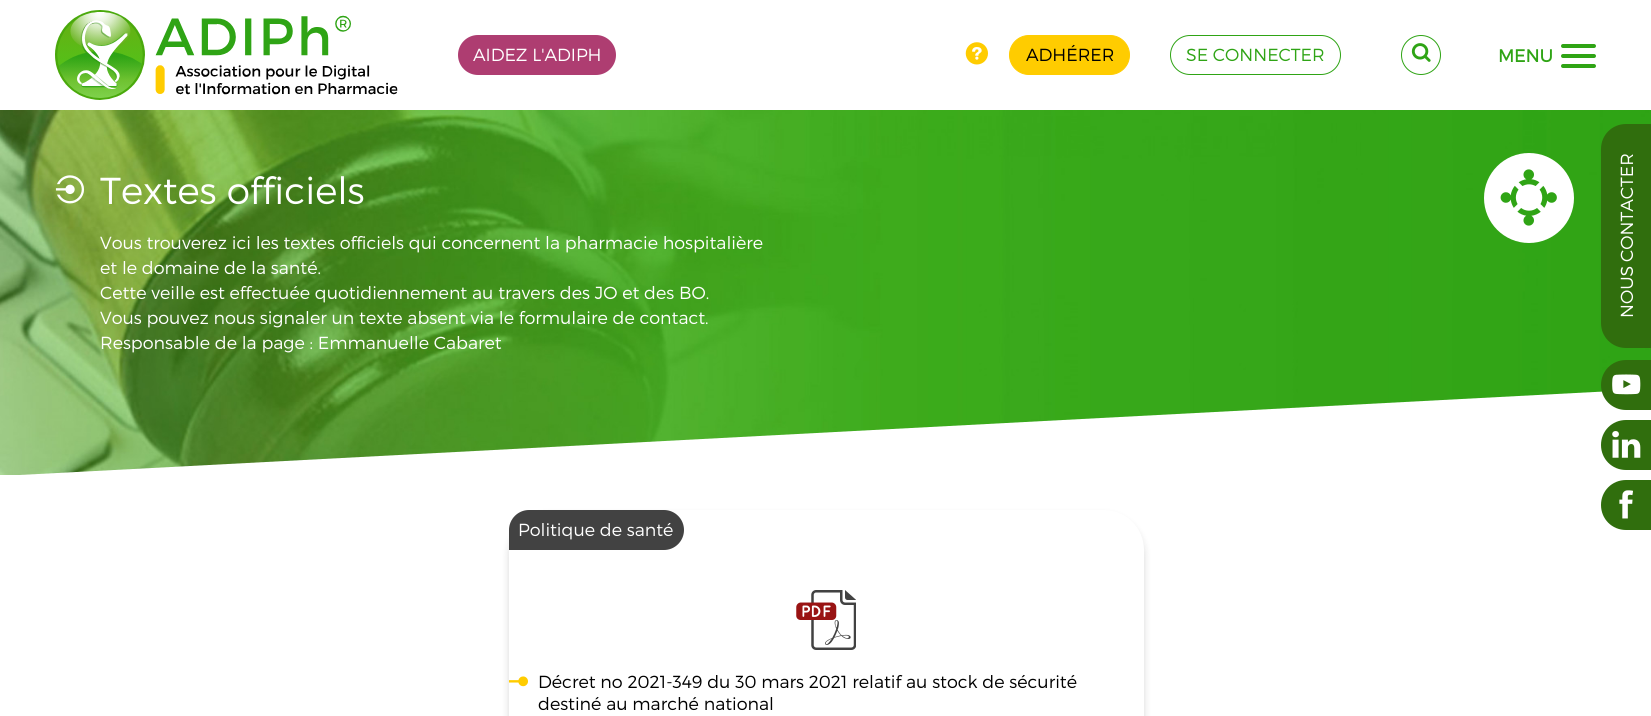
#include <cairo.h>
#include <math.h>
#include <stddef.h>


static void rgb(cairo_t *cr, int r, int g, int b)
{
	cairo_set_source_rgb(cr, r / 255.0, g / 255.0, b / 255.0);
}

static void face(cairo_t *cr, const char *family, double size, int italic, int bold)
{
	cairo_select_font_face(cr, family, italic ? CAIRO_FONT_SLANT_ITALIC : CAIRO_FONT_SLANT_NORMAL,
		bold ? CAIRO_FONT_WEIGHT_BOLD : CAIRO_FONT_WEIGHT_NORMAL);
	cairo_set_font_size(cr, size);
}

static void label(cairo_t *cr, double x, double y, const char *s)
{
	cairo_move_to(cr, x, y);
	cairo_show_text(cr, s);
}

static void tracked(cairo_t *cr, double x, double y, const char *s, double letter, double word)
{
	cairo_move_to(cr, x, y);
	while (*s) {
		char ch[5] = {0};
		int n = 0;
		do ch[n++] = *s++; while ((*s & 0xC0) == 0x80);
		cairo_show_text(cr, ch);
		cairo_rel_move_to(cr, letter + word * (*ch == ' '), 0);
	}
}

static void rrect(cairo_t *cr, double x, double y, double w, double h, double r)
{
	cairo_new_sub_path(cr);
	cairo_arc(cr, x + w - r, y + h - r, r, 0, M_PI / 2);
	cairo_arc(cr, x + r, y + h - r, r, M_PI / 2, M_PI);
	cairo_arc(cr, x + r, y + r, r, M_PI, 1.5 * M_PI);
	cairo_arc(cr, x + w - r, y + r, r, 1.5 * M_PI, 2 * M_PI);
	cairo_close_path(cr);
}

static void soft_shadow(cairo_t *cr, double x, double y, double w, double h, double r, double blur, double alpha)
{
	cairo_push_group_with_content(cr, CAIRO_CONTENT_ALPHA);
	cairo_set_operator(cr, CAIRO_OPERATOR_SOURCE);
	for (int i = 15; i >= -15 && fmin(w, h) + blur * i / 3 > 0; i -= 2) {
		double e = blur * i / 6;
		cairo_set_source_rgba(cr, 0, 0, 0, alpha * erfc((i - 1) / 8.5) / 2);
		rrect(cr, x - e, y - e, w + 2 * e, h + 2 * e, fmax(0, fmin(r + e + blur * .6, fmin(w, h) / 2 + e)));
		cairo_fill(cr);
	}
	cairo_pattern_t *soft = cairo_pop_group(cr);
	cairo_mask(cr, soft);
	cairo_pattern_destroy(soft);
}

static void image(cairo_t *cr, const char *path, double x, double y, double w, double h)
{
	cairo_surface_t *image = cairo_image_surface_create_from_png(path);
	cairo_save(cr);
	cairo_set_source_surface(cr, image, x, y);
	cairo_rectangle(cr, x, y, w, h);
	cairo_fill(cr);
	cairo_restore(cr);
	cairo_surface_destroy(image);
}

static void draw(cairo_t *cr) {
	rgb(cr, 255, 255, 255);
	cairo_paint(cr);
	image(cr, "image0.png", 55, 10, 343, 90);
	rgb(cr, 174, 61, 113);
	rrect(cr, 458, 35, 158, 40, 20);
	cairo_fill(cr);
	face(cr, "Montserrat Light", 17.5, 0, 0);
	rgb(cr, 255, 255, 255);
	label(cr, 473, 61, "AIDEZ L'ADIPH");
	image(cr, "image1.png", 965, 42, 23, 23);
	rgb(cr, 255, 204, 0);
	rrect(cr, 1009.5, 35.5, 120, 39, 19.5);
	cairo_fill_preserve(cr);
	cairo_set_line_width(cr, 1);
	cairo_stroke(cr);
	rgb(cr, 0, 0, 0);
	label(cr, 1026, 61, "ADHÉRER");
	rrect(cr, 1170.5, 35.5, 170, 39, 19.5);
	rgb(cr, 47, 164, 21);
	cairo_stroke(cr);
	label(cr, 1186, 61, "SE CONNECTER");
	cairo_new_path(cr);
	cairo_arc(cr, 1421, 55, 19.5, 0, 2 * M_PI);
	cairo_stroke(cr);
	image(cr, "image2.png", 1411, 43, 20, 19);
	rrect(cr, 1561, 44, 35, 4, 2);
	cairo_fill(cr);
	face(cr, "Montserrat", 17.5, 0, 1);
	label(cr, 1498, 62, "MENU");
	rrect(cr, 1561, 54, 35, 4, 2);
	cairo_fill(cr);
	rrect(cr, 1561, 64, 35, 4, 2);
	cairo_fill(cr);
	image(cr, "image3.png", 0, 110, 1651, 365);
	image(cr, "image4.png", 55, 175, 30, 29);
	face(cr, "Montserrat Light", 37.5, 0, 0);
	rgb(cr, 255, 255, 255);
	label(cr, 100, 204, "Textes officiels");
	face(cr, "Montserrat Light", 17.5, 0, 0);
	label(cr, 100, 249, "Vous trouverez ici les textes officiels qui concernent la pharmacie hospitalière");
	label(cr, 100, 274, "et le domaine de la santé.");
	label(cr, 100, 299, "Cette veille est effectuée quotidiennement au travers des JO et des BO.");
	label(cr, 100, 324, "Vous pouvez nous signaler un texte absent via le formulaire de contact.");
	label(cr, 100, 349, "Responsable de la page : Emmanuelle Cabaret");
	cairo_new_path(cr);
	cairo_arc(cr, 1529, 198, 45, 0, 2 * M_PI);
	cairo_fill(cr);
	image(cr, "image5.png", 1500, 169, 57, 57);
	cairo_new_path(cr);
	cairo_move_to(cr, 0, 476);
	cairo_line_to(cr, 1651, 389);
	cairo_line_to(cr, 1651, 478);
	cairo_line_to(cr, 0, 478);
	cairo_close_path(cr);
	cairo_fill(cr);
	rgb(cr, 48, 110, 13);
	cairo_new_path(cr);
	cairo_move_to(cr, 1651, 348);
	cairo_line_to(cr, 1626, 348);
	cairo_curve_to(cr, 1612, 348, 1601, 337, 1601, 323);
	cairo_line_to(cr, 1601, 149);
	cairo_curve_to(cr, 1601, 135, 1612, 124, 1626, 124);
	cairo_line_to(cr, 1651, 124);
	cairo_close_path(cr);
	cairo_fill(cr);
	rgb(cr, 255, 255, 255);
	cairo_save(cr);
	cairo_translate(cr, 1633, 318);
	cairo_rotate(cr, -90 * M_PI / 180);
	tracked(cr, 0, 0, "NOUS CONTACTER", 0, -1);
	cairo_restore(cr);
	rgb(cr, 48, 110, 13);
	cairo_new_path(cr);
	cairo_move_to(cr, 1626, 360);
	cairo_line_to(cr, 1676, 360);
	cairo_line_to(cr, 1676, 410);
	cairo_line_to(cr, 1626, 410);
	cairo_curve_to(cr, 1612, 410, 1601, 399, 1601, 385);
	cairo_curve_to(cr, 1601, 371, 1612, 360, 1626, 360);
	cairo_close_path(cr);
	cairo_fill(cr);
	image(cr, "image6.png", 1612, 374, 29, 21);
	cairo_new_path(cr);
	cairo_move_to(cr, 1626, 420);
	cairo_line_to(cr, 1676, 420);
	cairo_line_to(cr, 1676, 470);
	cairo_line_to(cr, 1626, 470);
	cairo_curve_to(cr, 1612, 470, 1601, 459, 1601, 445);
	cairo_curve_to(cr, 1601, 431, 1612, 420, 1626, 420);
	cairo_close_path(cr);
	cairo_fill(cr);
	image(cr, "image7.png", 1612, 431, 29, 27);
	cairo_new_path(cr);
	cairo_move_to(cr, 1626, 480);
	cairo_line_to(cr, 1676, 480);
	cairo_line_to(cr, 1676, 530);
	cairo_line_to(cr, 1626, 530);
	cairo_curve_to(cr, 1612, 530, 1601, 519, 1601, 505);
	cairo_curve_to(cr, 1601, 491, 1612, 480, 1626, 480);
	cairo_close_path(cr);
	cairo_fill(cr);
	image(cr, "image8.png", 1619, 490, 14, 29);
	rgb(cr, 0, 0, 0);
	soft_shadow(cr, 509, 515, 635, 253, 40, 4, 0.15);
	rgb(cr, 255, 255, 255);
	rrect(cr, 509, 510, 635, 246, 40);
	cairo_fill(cr);
	rgb(cr, 66, 66, 66);
	cairo_new_path(cr);
	cairo_move_to(cr, 529, 510);
	cairo_line_to(cr, 664, 510);
	cairo_curve_to(cr, 675, 510, 684, 519, 684, 530);
	cairo_curve_to(cr, 684, 541, 675, 550, 664, 550);
	cairo_line_to(cr, 509, 550);
	cairo_line_to(cr, 509, 530);
	cairo_curve_to(cr, 509, 519, 518, 510, 529, 510);
	cairo_close_path(cr);
	cairo_fill(cr);
	rgb(cr, 255, 255, 255);
	label(cr, 518, 536, "Politique de santé");
	image(cr, "image9.png", 796, 590, 60, 60);
	image(cr, "image10.png", 509, 676, 19, 11);
	rgb(cr, 0, 0, 0);
	label(cr, 538, 688, "Décret no 2021-349 du 30 mars 2021 relatif au stock de sécurité");
	label(cr, 538, 710, "destiné au marché national");
}

int main(void) {
	cairo_surface_t *surface = cairo_image_surface_create(CAIRO_FORMAT_RGB24, 1651, 716);
	cairo_t *cr = cairo_create(surface);
	cairo_font_options_t *options = cairo_font_options_create();
	cairo_font_options_set_hint_metrics(options, CAIRO_HINT_METRICS_OFF);
	cairo_font_options_set_hint_style(options, CAIRO_HINT_STYLE_NONE);
	cairo_set_font_options(cr, options);
	cairo_set_miter_limit(cr, 4);
	draw(cr);
	cairo_surface_write_to_png(surface, "render.png");
	cairo_font_options_destroy(options);
	cairo_destroy(cr);
	cairo_surface_destroy(surface);
	return 0;
}
